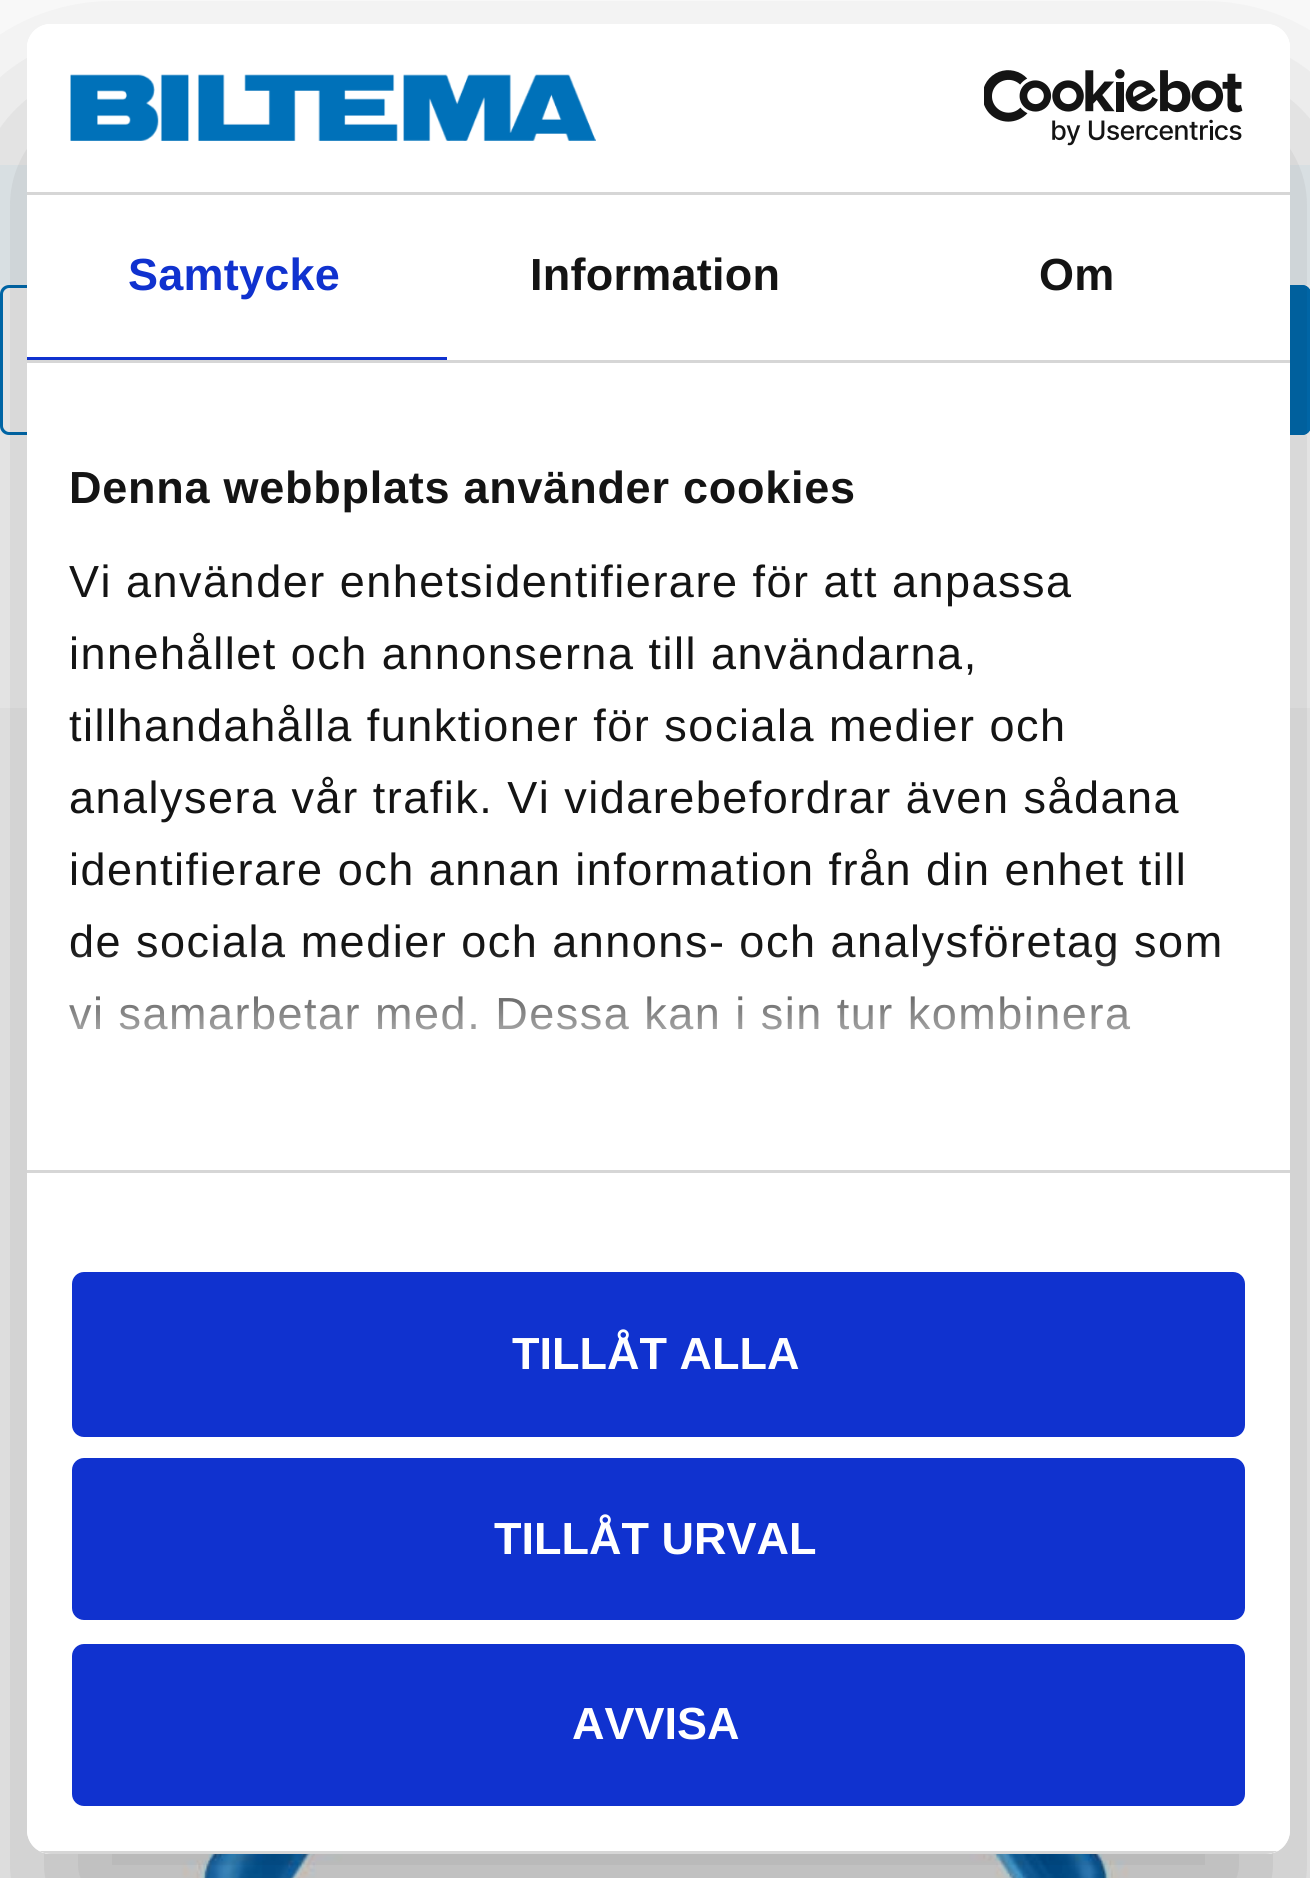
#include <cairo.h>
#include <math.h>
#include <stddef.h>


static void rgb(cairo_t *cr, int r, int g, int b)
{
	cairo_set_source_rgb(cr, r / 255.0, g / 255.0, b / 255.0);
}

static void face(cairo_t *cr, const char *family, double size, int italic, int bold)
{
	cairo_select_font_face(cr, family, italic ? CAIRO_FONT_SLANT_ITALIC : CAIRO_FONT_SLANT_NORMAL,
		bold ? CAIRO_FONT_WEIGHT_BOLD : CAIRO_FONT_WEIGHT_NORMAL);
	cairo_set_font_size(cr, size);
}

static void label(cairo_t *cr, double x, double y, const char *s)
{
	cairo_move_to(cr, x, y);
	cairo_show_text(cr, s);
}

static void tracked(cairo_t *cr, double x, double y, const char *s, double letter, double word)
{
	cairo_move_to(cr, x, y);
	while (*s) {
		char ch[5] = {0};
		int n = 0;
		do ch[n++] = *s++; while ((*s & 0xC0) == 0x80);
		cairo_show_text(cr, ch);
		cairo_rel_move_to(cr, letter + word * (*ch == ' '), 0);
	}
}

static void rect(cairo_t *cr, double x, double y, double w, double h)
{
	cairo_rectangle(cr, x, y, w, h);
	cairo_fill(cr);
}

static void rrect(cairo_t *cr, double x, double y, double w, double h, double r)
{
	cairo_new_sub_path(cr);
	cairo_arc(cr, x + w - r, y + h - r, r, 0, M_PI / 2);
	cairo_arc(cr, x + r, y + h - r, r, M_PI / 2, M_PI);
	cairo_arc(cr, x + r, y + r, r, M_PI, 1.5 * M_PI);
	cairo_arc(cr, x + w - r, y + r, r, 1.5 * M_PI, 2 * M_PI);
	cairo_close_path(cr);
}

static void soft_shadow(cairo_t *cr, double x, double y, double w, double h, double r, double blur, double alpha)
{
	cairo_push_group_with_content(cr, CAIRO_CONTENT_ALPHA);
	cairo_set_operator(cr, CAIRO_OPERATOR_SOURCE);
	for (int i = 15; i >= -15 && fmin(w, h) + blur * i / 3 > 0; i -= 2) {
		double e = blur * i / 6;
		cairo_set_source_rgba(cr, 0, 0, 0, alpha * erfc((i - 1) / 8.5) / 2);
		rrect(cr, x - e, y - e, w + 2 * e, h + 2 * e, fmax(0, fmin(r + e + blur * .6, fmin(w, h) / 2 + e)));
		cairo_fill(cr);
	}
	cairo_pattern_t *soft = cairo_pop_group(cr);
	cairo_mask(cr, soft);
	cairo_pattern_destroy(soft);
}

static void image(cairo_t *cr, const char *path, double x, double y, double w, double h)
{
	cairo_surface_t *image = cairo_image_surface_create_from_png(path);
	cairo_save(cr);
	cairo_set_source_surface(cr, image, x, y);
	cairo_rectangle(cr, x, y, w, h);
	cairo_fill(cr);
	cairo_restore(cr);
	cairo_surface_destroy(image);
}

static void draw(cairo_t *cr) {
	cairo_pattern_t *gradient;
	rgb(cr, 255, 255, 255);
	cairo_paint(cr);
	rgb(cr, 243, 250, 254);
	rect(cr, 0, 165, 1310, 120);
	rgb(cr, 0, 113, 185);
	cairo_set_fill_rule(cr, CAIRO_FILL_RULE_EVEN_ODD);
	cairo_new_path(cr);
	cairo_move_to(cr, 9, 285);
	cairo_line_to(cr, 1302, 285);
	cairo_curve_to(cr, 1307, 285, 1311, 289, 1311, 294);
	cairo_line_to(cr, 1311, 426);
	cairo_curve_to(cr, 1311, 431, 1307, 435, 1302, 435);
	cairo_line_to(cr, 9, 435);
	cairo_curve_to(cr, 4, 435, 0, 431, 0, 426);
	cairo_line_to(cr, 0, 294);
	cairo_curve_to(cr, 0, 289, 4, 285, 9, 285);
	cairo_close_path(cr);
	cairo_move_to(cr, 9, 288);
	cairo_line_to(cr, 1302, 288);
	cairo_curve_to(cr, 1307, 288, 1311, 291, 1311, 294);
	cairo_line_to(cr, 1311, 426);
	cairo_curve_to(cr, 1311, 429, 1307, 432, 1302, 432);
	cairo_line_to(cr, 9, 432);
	cairo_curve_to(cr, 6, 432, 3, 429, 3, 426);
	cairo_line_to(cr, 3, 294);
	cairo_curve_to(cr, 3, 291, 6, 288, 9, 288);
	cairo_close_path(cr);
	cairo_fill(cr);
	rrect(cr, 1161, 285, 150, 150, 9);
	cairo_fill(cr);
	image(cr, "image2.png", 0, 708, 1310, 1170);
	cairo_save(cr);
	cairo_new_path(cr);
	cairo_move_to(cr, 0, 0);
	cairo_line_to(cr, 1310, 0);
	cairo_line_to(cr, 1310, 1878);
	cairo_line_to(cr, 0, 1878);
	cairo_close_path(cr);
	cairo_move_to(cr, 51, 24);
	cairo_line_to(cr, 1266, 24);
	cairo_curve_to(cr, 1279.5, 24, 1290, 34.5, 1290, 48);
	cairo_line_to(cr, 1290, 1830);
	cairo_curve_to(cr, 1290, 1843.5, 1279.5, 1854, 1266, 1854);
	cairo_line_to(cr, 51, 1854);
	cairo_curve_to(cr, 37.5, 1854, 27, 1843.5, 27, 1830);
	cairo_line_to(cr, 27, 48);
	cairo_curve_to(cr, 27, 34.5, 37.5, 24, 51, 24);
	cairo_close_path(cr);
	cairo_clip(cr);
	rgb(cr, 0, 0, 0);
	soft_shadow(cr, 27, 120, 1263, 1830, 24, 102, 0.3);
	cairo_restore(cr);
	rgb(cr, 255, 255, 255);
	rrect(cr, 27, 24, 1263, 1830, 24);
	cairo_fill(cr);
	rgb(cr, 214, 214, 214);
	rect(cr, 27, 192, 1263, 3);
	image(cr, "image0.png", 70, 74, 526, 67);
	image(cr, "image1.png", 984, 69, 259, 77);
	rect(cr, 27, 360, 1263, 3);
	rgb(cr, 16, 50, 207);
	rect(cr, 27, 357, 420, 3);
	face(cr, "Liberation Sans", 45, 0, 1);
	tracked(cr, 128, 290, "Samtycke", 0.25, 0);
	rgb(cr, 20, 20, 20);
	tracked(cr, 530, 290, "Information", 0.25, 0);
	tracked(cr, 1039, 290, "Om", 0.25, 0);
	rgb(cr, 214, 214, 214);
	rect(cr, 27, 1170, 1263, 3);
	rgb(cr, 20, 20, 20);
	tracked(cr, 69, 503, "Denna webbplats använder cookies", 0.75, 0);
	face(cr, "Liberation Sans", 45, 0, 0);
	tracked(cr, 69, 597, "Vi använder enhetsidentifierare för att anpassa", 1.5, 0);
	tracked(cr, 69, 669, "innehållet och annonserna till användarna,", 1.5, 0);
	tracked(cr, 69, 741, "tillhandahålla funktioner för sociala medier och", 1.5, 0);
	tracked(cr, 69, 813, "analysera vår trafik. Vi vidarebefordrar även sådana", 1.5, 0);
	tracked(cr, 69, 885, "identifierare och annan information från din enhet till", 1.5, 0);
	tracked(cr, 69, 957, "de sociala medier och annons- och analysföretag som", 1.5, 0);
	tracked(cr, 69, 1029, "vi samarbetar med. Dessa kan i sin tur kombinera", 1.5, 0);
	gradient = cairo_pattern_create_linear(638, 1170, 638, 945);
	cairo_pattern_add_color_stop_rgba(gradient, 0, 1, 1, 1, 1);
	cairo_pattern_add_color_stop_rgba(gradient, 0.5, 1, 1, 1, 0.8);
	cairo_pattern_add_color_stop_rgba(gradient, 1, 1, 1, 1, 0);
	cairo_set_source(cr, gradient);
	cairo_pattern_destroy(gradient);
	rect(cr, 69, 948, 1151, 82);
	cairo_save(cr);
	cairo_set_fill_rule(cr, CAIRO_FILL_RULE_WINDING);
	rrect(cr, 27, 24, 1263, 1830, 24);
	cairo_clip(cr);
	rgb(cr, 214, 214, 214);
	rect(cr, 39, 1851, 1239, 3);
	cairo_restore(cr);
	rgb(cr, 16, 50, 207);
	rrect(cr, 75, 1275, 1167, 159, 9);
	cairo_fill_preserve(cr);
	cairo_set_line_width(cr, 6);
	cairo_stroke(cr);
	face(cr, "Liberation Sans", 45, 0, 1);
	rgb(cr, 255, 255, 255);
	label(cr, 512, 1369, "TILLÅT ALLA");
	rgb(cr, 16, 50, 207);
	rrect(cr, 75, 1461, 1167, 156, 9);
	cairo_fill_preserve(cr);
	cairo_stroke(cr);
	rgb(cr, 255, 255, 255);
	label(cr, 494, 1554, "TILLÅT URVAL");
	rgb(cr, 16, 50, 207);
	rrect(cr, 75, 1647, 1167, 156, 9);
	cairo_fill_preserve(cr);
	cairo_stroke(cr);
	rgb(cr, 255, 255, 255);
	label(cr, 572, 1739, "AVVISA");
}

int main(void) {
	cairo_surface_t *surface = cairo_image_surface_create(CAIRO_FORMAT_RGB24, 1310, 1878);
	cairo_t *cr = cairo_create(surface);
	cairo_font_options_t *options = cairo_font_options_create();
	cairo_font_options_set_hint_metrics(options, CAIRO_HINT_METRICS_OFF);
	cairo_font_options_set_hint_style(options, CAIRO_HINT_STYLE_NONE);
	cairo_set_font_options(cr, options);
	cairo_set_miter_limit(cr, 4);
	draw(cr);
	cairo_surface_write_to_png(surface, "render.png");
	cairo_font_options_destroy(options);
	cairo_destroy(cr);
	cairo_surface_destroy(surface);
	return 0;
}
